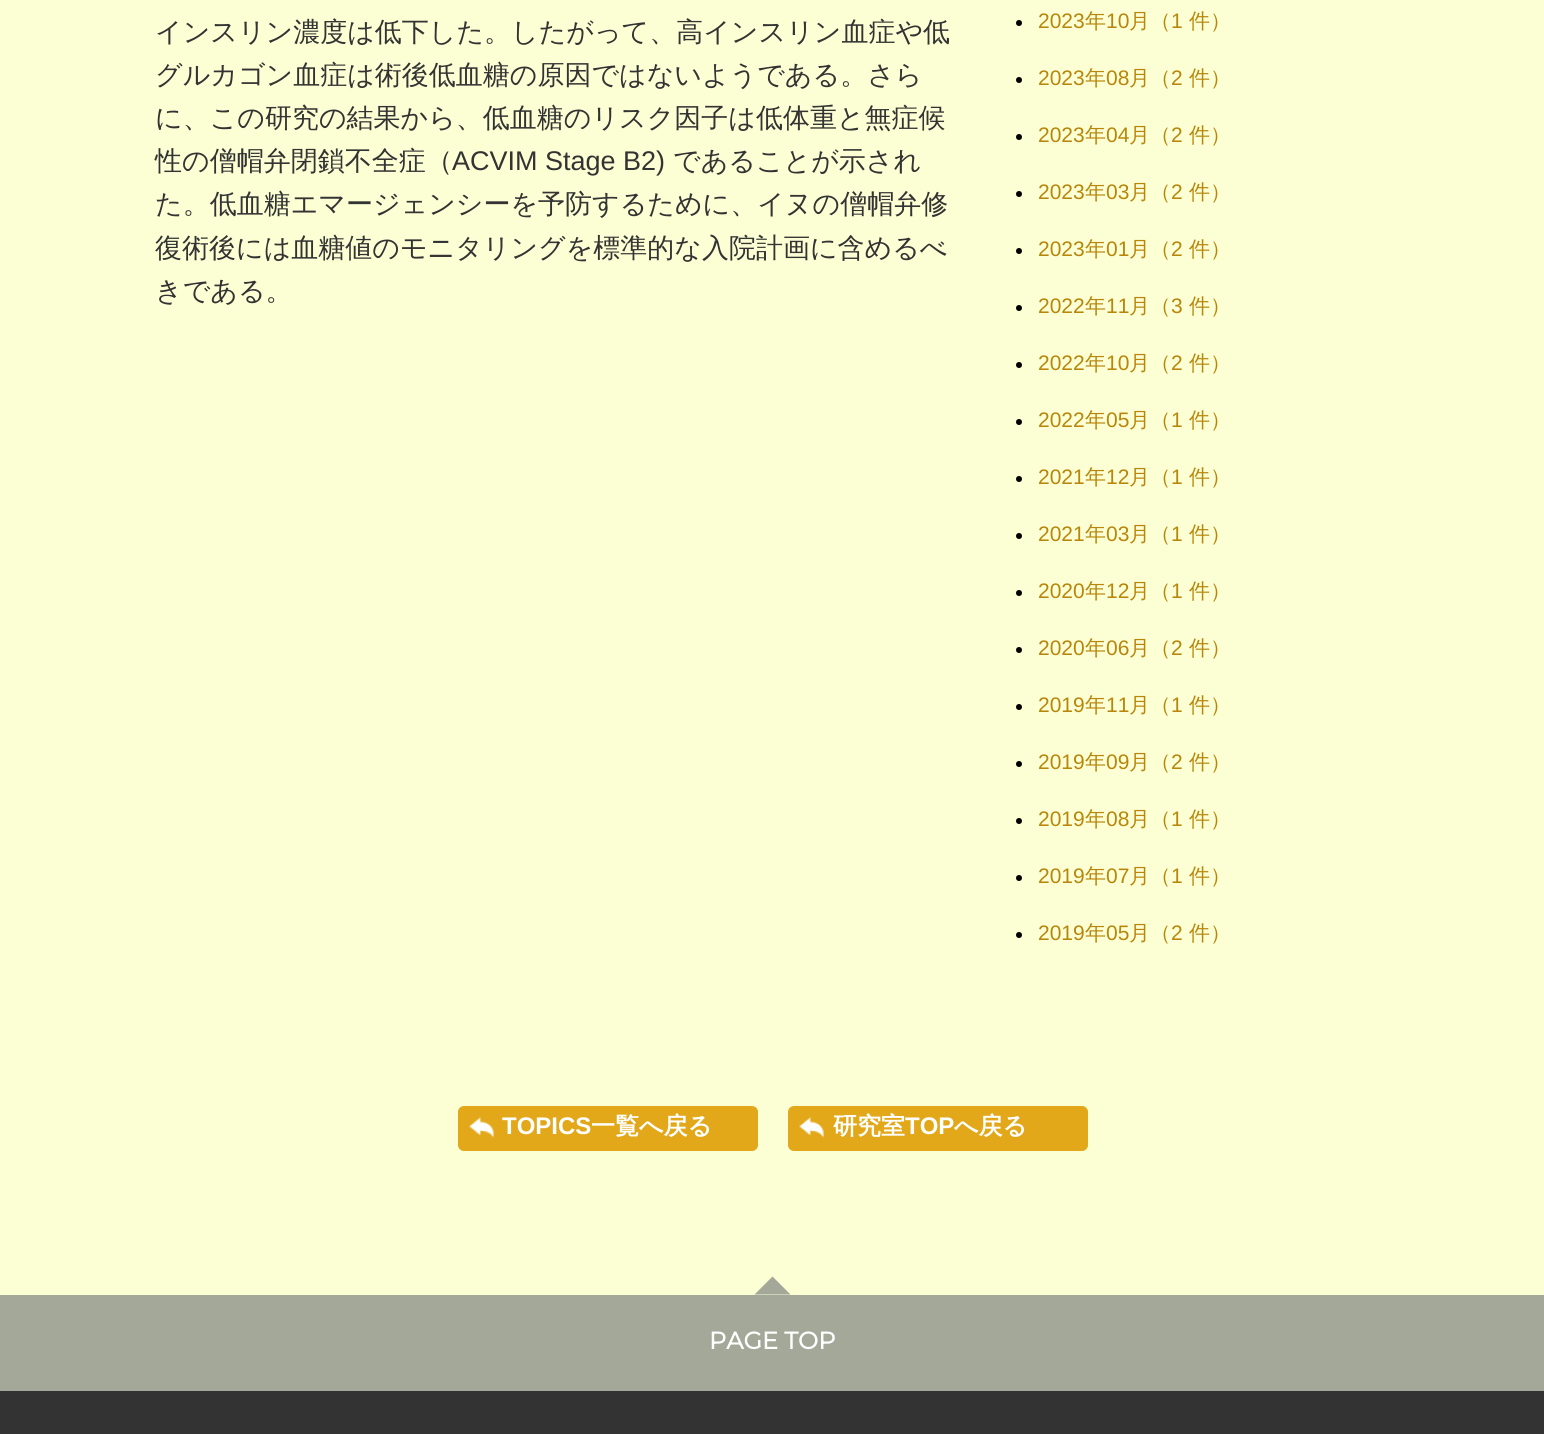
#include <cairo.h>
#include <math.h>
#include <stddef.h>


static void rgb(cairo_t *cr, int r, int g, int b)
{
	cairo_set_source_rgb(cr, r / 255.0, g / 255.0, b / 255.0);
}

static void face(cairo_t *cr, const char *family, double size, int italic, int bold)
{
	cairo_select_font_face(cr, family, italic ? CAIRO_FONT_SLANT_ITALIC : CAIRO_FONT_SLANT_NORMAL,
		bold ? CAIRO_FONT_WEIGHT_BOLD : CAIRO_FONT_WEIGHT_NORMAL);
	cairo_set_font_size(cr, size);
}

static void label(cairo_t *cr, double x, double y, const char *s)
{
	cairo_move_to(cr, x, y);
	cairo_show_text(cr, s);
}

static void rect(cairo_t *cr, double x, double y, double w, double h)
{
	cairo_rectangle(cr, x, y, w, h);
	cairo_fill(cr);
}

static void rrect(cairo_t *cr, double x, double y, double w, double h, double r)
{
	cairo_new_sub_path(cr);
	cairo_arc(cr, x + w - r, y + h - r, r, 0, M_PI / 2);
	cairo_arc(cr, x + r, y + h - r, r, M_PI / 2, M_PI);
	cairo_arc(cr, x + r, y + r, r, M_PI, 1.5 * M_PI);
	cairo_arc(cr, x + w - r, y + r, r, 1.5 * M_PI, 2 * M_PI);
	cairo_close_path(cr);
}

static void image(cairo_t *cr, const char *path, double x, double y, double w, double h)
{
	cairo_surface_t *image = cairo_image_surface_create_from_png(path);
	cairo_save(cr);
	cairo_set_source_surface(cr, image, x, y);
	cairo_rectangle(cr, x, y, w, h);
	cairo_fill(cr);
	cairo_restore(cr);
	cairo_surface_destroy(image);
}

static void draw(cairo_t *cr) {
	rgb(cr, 252, 255, 212);
	cairo_paint(cr);
	face(cr, "WenQuanYi Zen Hei Medium", 27, 0, 0);
	rgb(cr, 51, 51, 51);
	label(cr, 155, 41, "インスリン濃度は低下した。したがって、高インスリン血症や低");
	label(cr, 155, 84, "グルカゴン血症は術後低血糖の原因ではないようである。さら");
	label(cr, 155, 127, "に、この研究の結果から、低血糖のリスク因子は低体重と無症候");
	label(cr, 155, 170, "性の僧帽弁閉鎖不全症（");
	face(cr, "Liberation Sans", 27, 0, 0);
	label(cr, 452, 170, "ACVIM Stage B2)");
	face(cr, "WenQuanYi Zen Hei Medium", 27, 0, 0);
	label(cr, 673, 170, "であることが示され");
	label(cr, 155, 213, "た。低血糖エマージェンシーを予防するために、イヌの僧帽弁修");
	label(cr, 155, 257, "復術後には血糖値のモニタリングを標準的な入院計画に含めるべ");
	label(cr, 155, 300, "きである。");
	rgb(cr, 0, 0, 0);
	cairo_new_path(cr);
	cairo_arc(cr, 1019, 23, 3, 0, 2 * M_PI);
	cairo_fill(cr);
	face(cr, "Liberation Sans", 21, 0, 0);
	rgb(cr, 184, 134, 11);
	label(cr, 1038, 28, "2023");
	face(cr, "WenQuanYi Zen Hei Medium", 21, 0, 0);
	label(cr, 1085, 28, "年");
	face(cr, "Liberation Sans", 21, 0, 0);
	label(cr, 1106, 28, "10");
	face(cr, "WenQuanYi Zen Hei Medium", 21, 0, 0);
	label(cr, 1129, 28, "月（");
	face(cr, "Liberation Sans", 21, 0, 0);
	label(cr, 1171, 28, "1");
	face(cr, "WenQuanYi Zen Hei Medium", 21, 0, 0);
	label(cr, 1189, 28, "件）");
	rgb(cr, 0, 0, 0);
	cairo_new_path(cr);
	cairo_arc(cr, 1019, 80, 3, 0, 2 * M_PI);
	cairo_fill(cr);
	face(cr, "Liberation Sans", 21, 0, 0);
	rgb(cr, 184, 134, 11);
	label(cr, 1038, 85, "2023");
	face(cr, "WenQuanYi Zen Hei Medium", 21, 0, 0);
	label(cr, 1085, 85, "年");
	face(cr, "Liberation Sans", 21, 0, 0);
	label(cr, 1106, 85, "08");
	face(cr, "WenQuanYi Zen Hei Medium", 21, 0, 0);
	label(cr, 1129, 85, "月（");
	face(cr, "Liberation Sans", 21, 0, 0);
	label(cr, 1171, 85, "2");
	face(cr, "WenQuanYi Zen Hei Medium", 21, 0, 0);
	label(cr, 1189, 85, "件）");
	rgb(cr, 0, 0, 0);
	cairo_new_path(cr);
	cairo_arc(cr, 1019, 137, 3, 0, 2 * M_PI);
	cairo_fill(cr);
	face(cr, "Liberation Sans", 21, 0, 0);
	rgb(cr, 184, 134, 11);
	label(cr, 1038, 142, "2023");
	face(cr, "WenQuanYi Zen Hei Medium", 21, 0, 0);
	label(cr, 1085, 142, "年");
	face(cr, "Liberation Sans", 21, 0, 0);
	label(cr, 1106, 142, "04");
	face(cr, "WenQuanYi Zen Hei Medium", 21, 0, 0);
	label(cr, 1129, 142, "月（");
	face(cr, "Liberation Sans", 21, 0, 0);
	label(cr, 1171, 142, "2");
	face(cr, "WenQuanYi Zen Hei Medium", 21, 0, 0);
	label(cr, 1189, 142, "件）");
	rgb(cr, 0, 0, 0);
	cairo_new_path(cr);
	cairo_arc(cr, 1019, 194, 3, 0, 2 * M_PI);
	cairo_fill(cr);
	face(cr, "Liberation Sans", 21, 0, 0);
	rgb(cr, 184, 134, 11);
	label(cr, 1038, 199, "2023");
	face(cr, "WenQuanYi Zen Hei Medium", 21, 0, 0);
	label(cr, 1085, 199, "年");
	face(cr, "Liberation Sans", 21, 0, 0);
	label(cr, 1106, 199, "03");
	face(cr, "WenQuanYi Zen Hei Medium", 21, 0, 0);
	label(cr, 1129, 199, "月（");
	face(cr, "Liberation Sans", 21, 0, 0);
	label(cr, 1171, 199, "2");
	face(cr, "WenQuanYi Zen Hei Medium", 21, 0, 0);
	label(cr, 1189, 199, "件）");
	rgb(cr, 0, 0, 0);
	cairo_new_path(cr);
	cairo_arc(cr, 1019, 251, 3, 0, 2 * M_PI);
	cairo_fill(cr);
	face(cr, "Liberation Sans", 21, 0, 0);
	rgb(cr, 184, 134, 11);
	label(cr, 1038, 256, "2023");
	face(cr, "WenQuanYi Zen Hei Medium", 21, 0, 0);
	label(cr, 1085, 256, "年");
	face(cr, "Liberation Sans", 21, 0, 0);
	label(cr, 1106, 256, "01");
	face(cr, "WenQuanYi Zen Hei Medium", 21, 0, 0);
	label(cr, 1129, 256, "月（");
	face(cr, "Liberation Sans", 21, 0, 0);
	label(cr, 1171, 256, "2");
	face(cr, "WenQuanYi Zen Hei Medium", 21, 0, 0);
	label(cr, 1189, 256, "件）");
	rgb(cr, 0, 0, 0);
	cairo_new_path(cr);
	cairo_arc(cr, 1019, 308, 3, 0, 2 * M_PI);
	cairo_fill(cr);
	face(cr, "Liberation Sans", 21, 0, 0);
	rgb(cr, 184, 134, 11);
	label(cr, 1038, 313, "2022");
	face(cr, "WenQuanYi Zen Hei Medium", 21, 0, 0);
	label(cr, 1085, 313, "年");
	face(cr, "Liberation Sans", 21, 0, 0);
	label(cr, 1106, 313, "11");
	face(cr, "WenQuanYi Zen Hei Medium", 21, 0, 0);
	label(cr, 1129, 313, "月（");
	face(cr, "Liberation Sans", 21, 0, 0);
	label(cr, 1171, 313, "3");
	face(cr, "WenQuanYi Zen Hei Medium", 21, 0, 0);
	label(cr, 1189, 313, "件）");
	rgb(cr, 0, 0, 0);
	cairo_new_path(cr);
	cairo_arc(cr, 1019, 365, 3, 0, 2 * M_PI);
	cairo_fill(cr);
	face(cr, "Liberation Sans", 21, 0, 0);
	rgb(cr, 184, 134, 11);
	label(cr, 1038, 370, "2022");
	face(cr, "WenQuanYi Zen Hei Medium", 21, 0, 0);
	label(cr, 1085, 370, "年");
	face(cr, "Liberation Sans", 21, 0, 0);
	label(cr, 1106, 370, "10");
	face(cr, "WenQuanYi Zen Hei Medium", 21, 0, 0);
	label(cr, 1129, 370, "月（");
	face(cr, "Liberation Sans", 21, 0, 0);
	label(cr, 1171, 370, "2");
	face(cr, "WenQuanYi Zen Hei Medium", 21, 0, 0);
	label(cr, 1189, 370, "件）");
	rgb(cr, 0, 0, 0);
	cairo_new_path(cr);
	cairo_arc(cr, 1019, 422, 3, 0, 2 * M_PI);
	cairo_fill(cr);
	face(cr, "Liberation Sans", 21, 0, 0);
	rgb(cr, 184, 134, 11);
	label(cr, 1038, 427, "2022");
	face(cr, "WenQuanYi Zen Hei Medium", 21, 0, 0);
	label(cr, 1085, 427, "年");
	face(cr, "Liberation Sans", 21, 0, 0);
	label(cr, 1106, 427, "05");
	face(cr, "WenQuanYi Zen Hei Medium", 21, 0, 0);
	label(cr, 1129, 427, "月（");
	face(cr, "Liberation Sans", 21, 0, 0);
	label(cr, 1171, 427, "1");
	face(cr, "WenQuanYi Zen Hei Medium", 21, 0, 0);
	label(cr, 1189, 427, "件）");
	rgb(cr, 0, 0, 0);
	cairo_new_path(cr);
	cairo_arc(cr, 1019, 479, 3, 0, 2 * M_PI);
	cairo_fill(cr);
	face(cr, "Liberation Sans", 21, 0, 0);
	rgb(cr, 184, 134, 11);
	label(cr, 1038, 484, "2021");
	face(cr, "WenQuanYi Zen Hei Medium", 21, 0, 0);
	label(cr, 1085, 484, "年");
	face(cr, "Liberation Sans", 21, 0, 0);
	label(cr, 1106, 484, "12");
	face(cr, "WenQuanYi Zen Hei Medium", 21, 0, 0);
	label(cr, 1129, 484, "月（");
	face(cr, "Liberation Sans", 21, 0, 0);
	label(cr, 1171, 484, "1");
	face(cr, "WenQuanYi Zen Hei Medium", 21, 0, 0);
	label(cr, 1189, 484, "件）");
	rgb(cr, 0, 0, 0);
	cairo_new_path(cr);
	cairo_arc(cr, 1019, 536, 3, 0, 2 * M_PI);
	cairo_fill(cr);
	face(cr, "Liberation Sans", 21, 0, 0);
	rgb(cr, 184, 134, 11);
	label(cr, 1038, 541, "2021");
	face(cr, "WenQuanYi Zen Hei Medium", 21, 0, 0);
	label(cr, 1085, 541, "年");
	face(cr, "Liberation Sans", 21, 0, 0);
	label(cr, 1106, 541, "03");
	face(cr, "WenQuanYi Zen Hei Medium", 21, 0, 0);
	label(cr, 1129, 541, "月（");
	face(cr, "Liberation Sans", 21, 0, 0);
	label(cr, 1171, 541, "1");
	face(cr, "WenQuanYi Zen Hei Medium", 21, 0, 0);
	label(cr, 1189, 541, "件）");
	rgb(cr, 0, 0, 0);
	cairo_new_path(cr);
	cairo_arc(cr, 1019, 593, 3, 0, 2 * M_PI);
	cairo_fill(cr);
	face(cr, "Liberation Sans", 21, 0, 0);
	rgb(cr, 184, 134, 11);
	label(cr, 1038, 598, "2020");
	face(cr, "WenQuanYi Zen Hei Medium", 21, 0, 0);
	label(cr, 1085, 598, "年");
	face(cr, "Liberation Sans", 21, 0, 0);
	label(cr, 1106, 598, "12");
	face(cr, "WenQuanYi Zen Hei Medium", 21, 0, 0);
	label(cr, 1129, 598, "月（");
	face(cr, "Liberation Sans", 21, 0, 0);
	label(cr, 1171, 598, "1");
	face(cr, "WenQuanYi Zen Hei Medium", 21, 0, 0);
	label(cr, 1189, 598, "件）");
	rgb(cr, 0, 0, 0);
	cairo_new_path(cr);
	cairo_arc(cr, 1019, 650, 3, 0, 2 * M_PI);
	cairo_fill(cr);
	face(cr, "Liberation Sans", 21, 0, 0);
	rgb(cr, 184, 134, 11);
	label(cr, 1038, 655, "2020");
	face(cr, "WenQuanYi Zen Hei Medium", 21, 0, 0);
	label(cr, 1085, 655, "年");
	face(cr, "Liberation Sans", 21, 0, 0);
	label(cr, 1106, 655, "06");
	face(cr, "WenQuanYi Zen Hei Medium", 21, 0, 0);
	label(cr, 1129, 655, "月（");
	face(cr, "Liberation Sans", 21, 0, 0);
	label(cr, 1171, 655, "2");
	face(cr, "WenQuanYi Zen Hei Medium", 21, 0, 0);
	label(cr, 1189, 655, "件）");
	rgb(cr, 0, 0, 0);
	cairo_new_path(cr);
	cairo_arc(cr, 1019, 707, 3, 0, 2 * M_PI);
	cairo_fill(cr);
	face(cr, "Liberation Sans", 21, 0, 0);
	rgb(cr, 184, 134, 11);
	label(cr, 1038, 712, "2019");
	face(cr, "WenQuanYi Zen Hei Medium", 21, 0, 0);
	label(cr, 1085, 712, "年");
	face(cr, "Liberation Sans", 21, 0, 0);
	label(cr, 1106, 712, "11");
	face(cr, "WenQuanYi Zen Hei Medium", 21, 0, 0);
	label(cr, 1129, 712, "月（");
	face(cr, "Liberation Sans", 21, 0, 0);
	label(cr, 1171, 712, "1");
	face(cr, "WenQuanYi Zen Hei Medium", 21, 0, 0);
	label(cr, 1189, 712, "件）");
	rgb(cr, 0, 0, 0);
	cairo_new_path(cr);
	cairo_arc(cr, 1019, 764, 3, 0, 2 * M_PI);
	cairo_fill(cr);
	face(cr, "Liberation Sans", 21, 0, 0);
	rgb(cr, 184, 134, 11);
	label(cr, 1038, 769, "2019");
	face(cr, "WenQuanYi Zen Hei Medium", 21, 0, 0);
	label(cr, 1085, 769, "年");
	face(cr, "Liberation Sans", 21, 0, 0);
	label(cr, 1106, 769, "09");
	face(cr, "WenQuanYi Zen Hei Medium", 21, 0, 0);
	label(cr, 1129, 769, "月（");
	face(cr, "Liberation Sans", 21, 0, 0);
	label(cr, 1171, 769, "2");
	face(cr, "WenQuanYi Zen Hei Medium", 21, 0, 0);
	label(cr, 1189, 769, "件）");
	rgb(cr, 0, 0, 0);
	cairo_new_path(cr);
	cairo_arc(cr, 1019, 821, 3, 0, 2 * M_PI);
	cairo_fill(cr);
	face(cr, "Liberation Sans", 21, 0, 0);
	rgb(cr, 184, 134, 11);
	label(cr, 1038, 826, "2019");
	face(cr, "WenQuanYi Zen Hei Medium", 21, 0, 0);
	label(cr, 1085, 826, "年");
	face(cr, "Liberation Sans", 21, 0, 0);
	label(cr, 1106, 826, "08");
	face(cr, "WenQuanYi Zen Hei Medium", 21, 0, 0);
	label(cr, 1129, 826, "月（");
	face(cr, "Liberation Sans", 21, 0, 0);
	label(cr, 1171, 826, "1");
	face(cr, "WenQuanYi Zen Hei Medium", 21, 0, 0);
	label(cr, 1189, 826, "件）");
	rgb(cr, 0, 0, 0);
	cairo_new_path(cr);
	cairo_arc(cr, 1019, 878, 3, 0, 2 * M_PI);
	cairo_fill(cr);
	face(cr, "Liberation Sans", 21, 0, 0);
	rgb(cr, 184, 134, 11);
	label(cr, 1038, 883, "2019");
	face(cr, "WenQuanYi Zen Hei Medium", 21, 0, 0);
	label(cr, 1085, 883, "年");
	face(cr, "Liberation Sans", 21, 0, 0);
	label(cr, 1106, 883, "07");
	face(cr, "WenQuanYi Zen Hei Medium", 21, 0, 0);
	label(cr, 1129, 883, "月（");
	face(cr, "Liberation Sans", 21, 0, 0);
	label(cr, 1171, 883, "1");
	face(cr, "WenQuanYi Zen Hei Medium", 21, 0, 0);
	label(cr, 1189, 883, "件）");
	rgb(cr, 0, 0, 0);
	cairo_new_path(cr);
	cairo_arc(cr, 1019, 935, 3, 0, 2 * M_PI);
	cairo_fill(cr);
	face(cr, "Liberation Sans", 21, 0, 0);
	rgb(cr, 184, 134, 11);
	label(cr, 1038, 940, "2019");
	face(cr, "WenQuanYi Zen Hei Medium", 21, 0, 0);
	label(cr, 1085, 940, "年");
	face(cr, "Liberation Sans", 21, 0, 0);
	label(cr, 1106, 940, "05");
	face(cr, "WenQuanYi Zen Hei Medium", 21, 0, 0);
	label(cr, 1129, 940, "月（");
	face(cr, "Liberation Sans", 21, 0, 0);
	label(cr, 1171, 940, "2");
	face(cr, "WenQuanYi Zen Hei Medium", 21, 0, 0);
	label(cr, 1189, 940, "件）");
	rgb(cr, 226, 168, 25);
	rrect(cr, 458, 1106, 300, 45, 6);
	cairo_fill(cr);
	image(cr, "image0.png", 469, 1116, 25, 22);
	face(cr, "Liberation Sans", 24, 0, 1);
	rgb(cr, 255, 255, 255);
	label(cr, 502, 1134, "TOPICS");
	face(cr, "WenQuanYi Zen Hei", 24, 0, 1);
	label(cr, 591, 1134, "一覧へ戻る");
	rgb(cr, 226, 168, 25);
	rrect(cr, 788, 1106, 300, 45, 6);
	cairo_fill(cr);
	image(cr, "image1.png", 799, 1116, 25, 22);
	rgb(cr, 255, 255, 255);
	label(cr, 833, 1134, "研究室");
	face(cr, "Liberation Sans", 24, 0, 1);
	label(cr, 905, 1134, "TOP");
	face(cr, "WenQuanYi Zen Hei", 24, 0, 1);
	label(cr, 954, 1134, "へ戻る");
	rgb(cr, 51, 51, 51);
	rect(cr, 0, 1391, 1544, 43);
	rgb(cr, 164, 168, 153);
	rect(cr, 0, 1295, 1544, 96);
	cairo_new_path(cr);
	cairo_move_to(cr, 790.5, 1294.5);
	cairo_line_to(cr, 754.5, 1294.5);
	cairo_line_to(cr, 772.5, 1276.5);
	cairo_close_path(cr);
	cairo_fill(cr);
	face(cr, "Montserrat", 24, 0, 1);
	rgb(cr, 255, 255, 255);
	label(cr, 709, 1349, "PAGE TOP");
}

int main(void) {
	cairo_surface_t *surface = cairo_image_surface_create(CAIRO_FORMAT_RGB24, 1544, 1434);
	cairo_t *cr = cairo_create(surface);
	cairo_font_options_t *options = cairo_font_options_create();
	cairo_font_options_set_hint_metrics(options, CAIRO_HINT_METRICS_OFF);
	cairo_font_options_set_hint_style(options, CAIRO_HINT_STYLE_NONE);
	cairo_set_font_options(cr, options);
	cairo_set_miter_limit(cr, 4);
	draw(cr);
	cairo_surface_write_to_png(surface, "render.png");
	cairo_font_options_destroy(options);
	cairo_destroy(cr);
	cairo_surface_destroy(surface);
	return 0;
}
